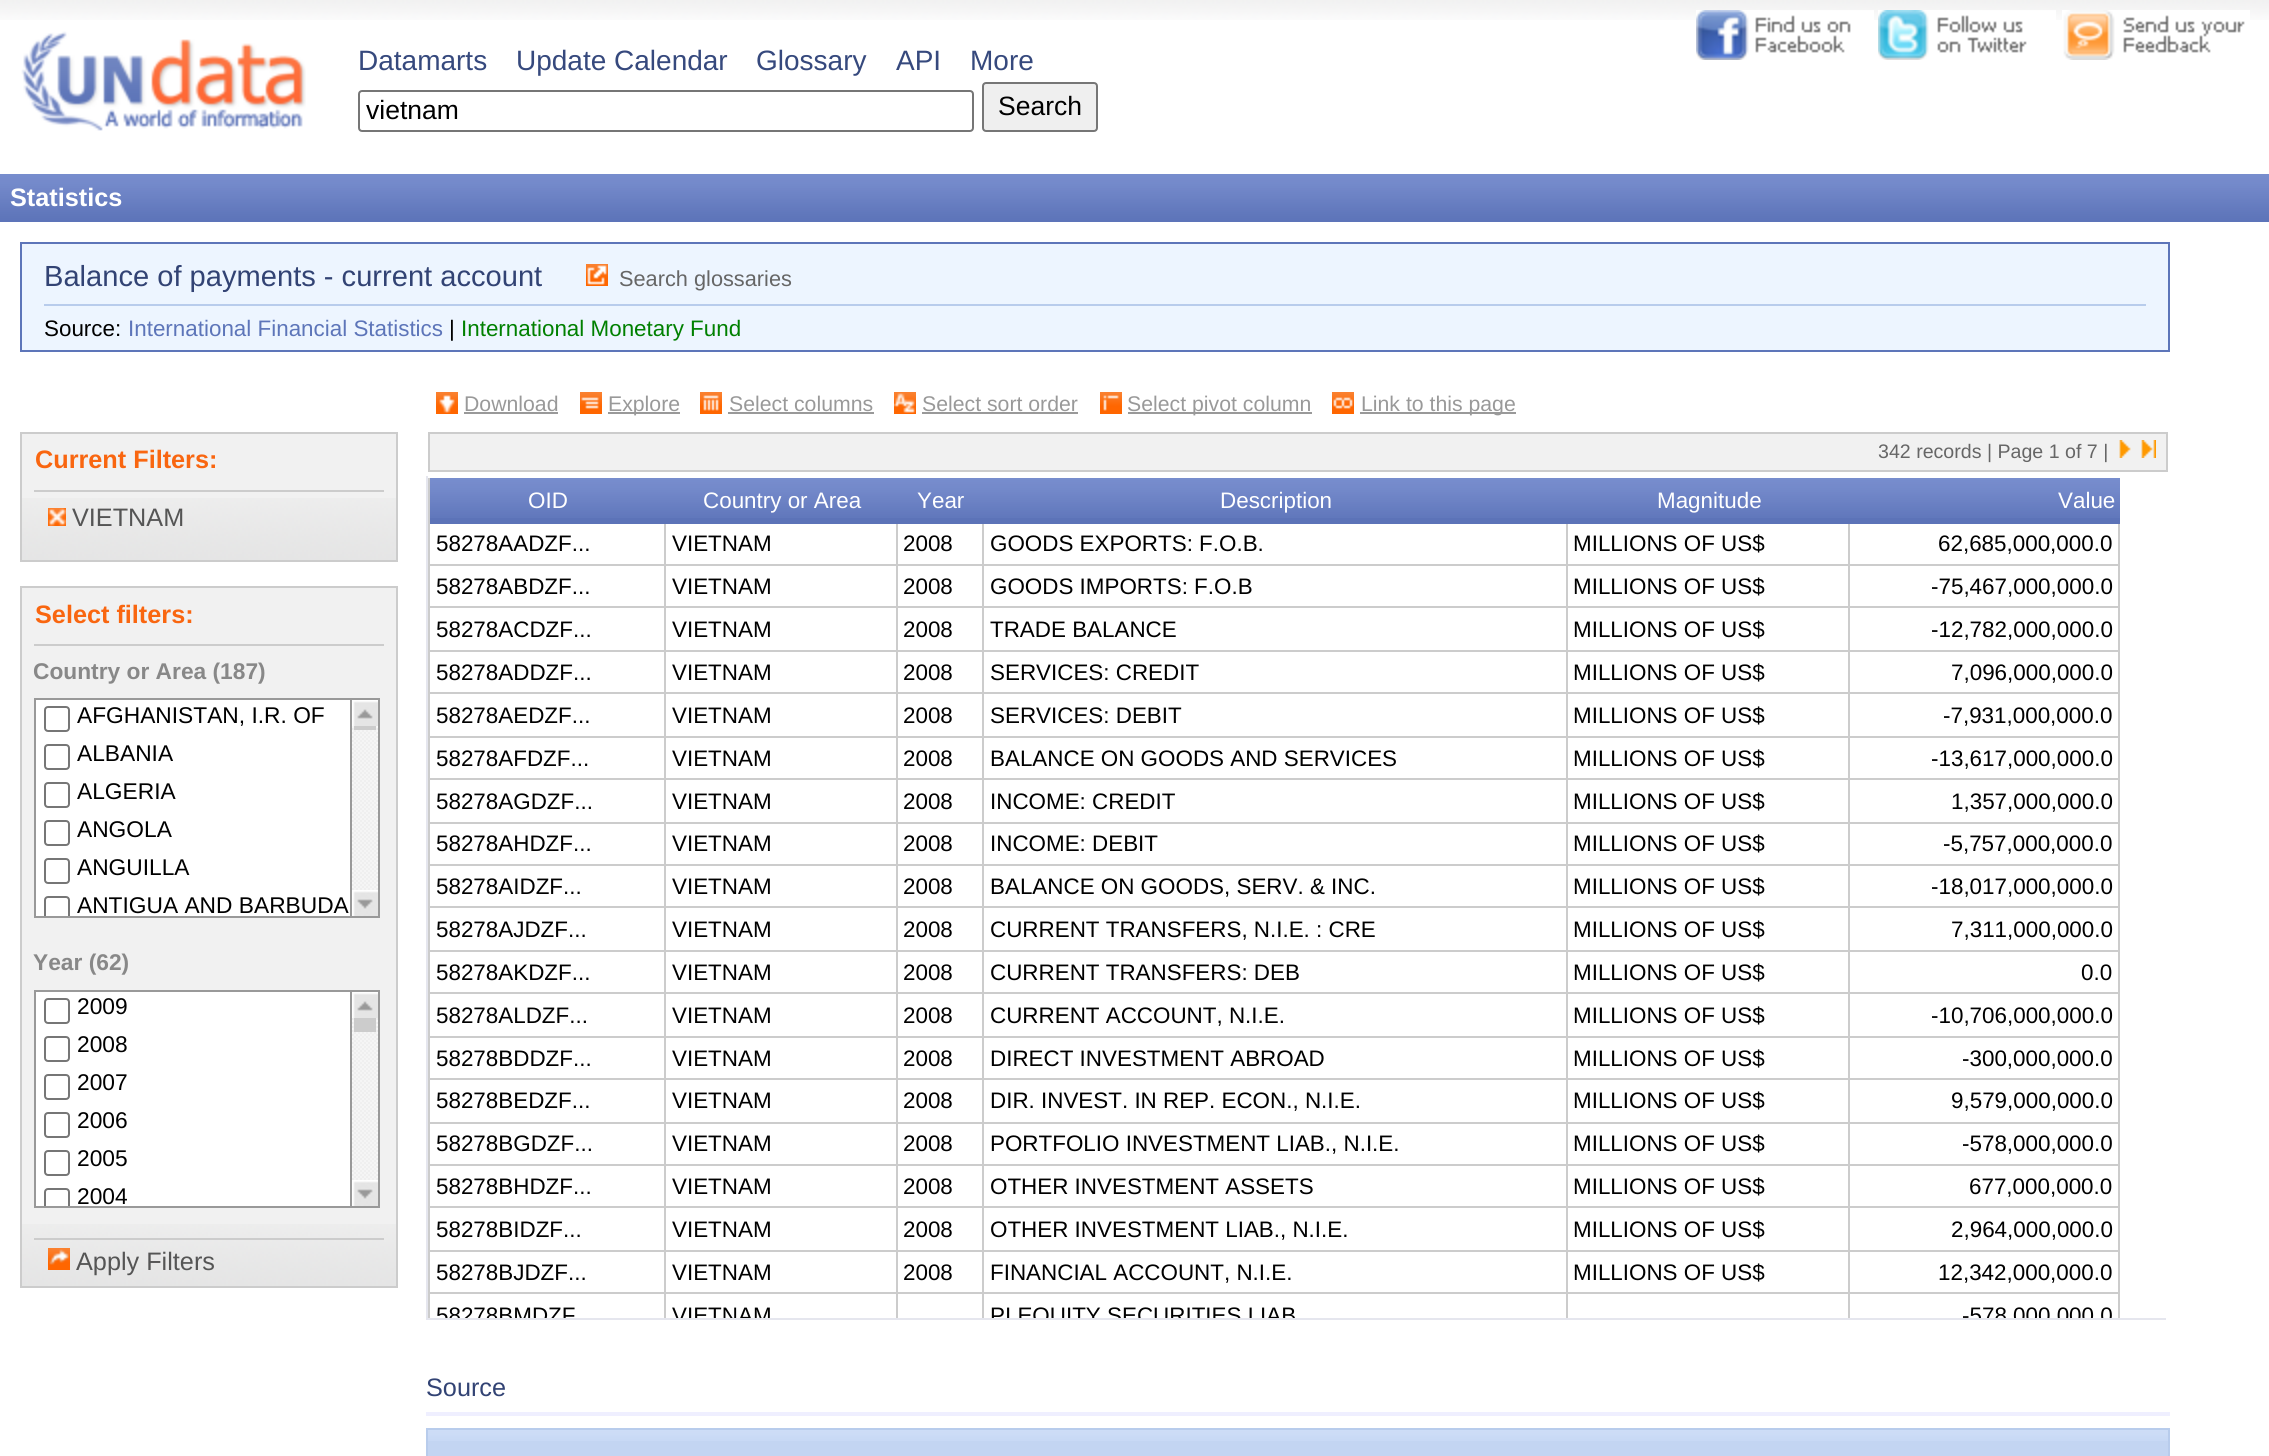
#include <cairo.h>
#include <math.h>
#include <stddef.h>


static void rgb(cairo_t *cr, int r, int g, int b)
{
	cairo_set_source_rgb(cr, r / 255.0, g / 255.0, b / 255.0);
}

static void face(cairo_t *cr, const char *family, double size, int italic, int bold)
{
	cairo_select_font_face(cr, family, italic ? CAIRO_FONT_SLANT_ITALIC : CAIRO_FONT_SLANT_NORMAL,
		bold ? CAIRO_FONT_WEIGHT_BOLD : CAIRO_FONT_WEIGHT_NORMAL);
	cairo_set_font_size(cr, size);
}

static void label(cairo_t *cr, double x, double y, const char *s)
{
	cairo_move_to(cr, x, y);
	cairo_show_text(cr, s);
}

static void rect(cairo_t *cr, double x, double y, double w, double h)
{
	cairo_rectangle(cr, x, y, w, h);
	cairo_fill(cr);
}

static void rrect(cairo_t *cr, double x, double y, double w, double h, double r)
{
	cairo_new_sub_path(cr);
	cairo_arc(cr, x + w - r, y + h - r, r, 0, M_PI / 2);
	cairo_arc(cr, x + r, y + h - r, r, M_PI / 2, M_PI);
	cairo_arc(cr, x + r, y + r, r, M_PI, 1.5 * M_PI);
	cairo_arc(cr, x + w - r, y + r, r, 1.5 * M_PI, 2 * M_PI);
	cairo_close_path(cr);
}

static void image(cairo_t *cr, const char *path, double x, double y, double w, double h)
{
	cairo_surface_t *image = cairo_image_surface_create_from_png(path);
	cairo_save(cr);
	cairo_set_source_surface(cr, image, x, y);
	cairo_rectangle(cr, x, y, w, h);
	cairo_fill(cr);
	cairo_restore(cr);
	cairo_surface_destroy(image);
}

static void draw(cairo_t *cr) {
	rgb(cr, 255, 255, 255);
	cairo_paint(cr);
	image(cr, "image0.png", 0, 0, 2269, 20);
	image(cr, "image1.png", 1696, 10, 178, 50);
	image(cr, "image2.png", 1878, 10, 178, 50);
	image(cr, "image3.png", 2062, 10, 188, 50);
	image(cr, "image4.png", 21, 31, 285, 100);
	face(cr, "Liberation Sans", 28, 0, 0);
	rgb(cr, 54, 73, 125);
	label(cr, 358, 70, "Datamarts");
	label(cr, 516, 70, "Update Calendar");
	label(cr, 756, 70, "Glossary");
	label(cr, 896, 70, "API");
	label(cr, 970, 70, "More");
	rrect(cr, 359, 91, 614, 40, 3);
	rgb(cr, 118, 118, 118);
	cairo_stroke(cr);
	face(cr, "Liberation Sans", 26.5, 0, 0);
	rgb(cr, 0, 0, 0);
	label(cr, 366, 119, "vietnam");
	rgb(cr, 239, 239, 239);
	rrect(cr, 983, 83, 114, 48, 3);
	cairo_fill_preserve(cr);
	rgb(cr, 118, 118, 118);
	cairo_stroke(cr);
	rgb(cr, 0, 0, 0);
	label(cr, 998, 115, "Search");
	image(cr, "image5.png", 0, 174, 2269, 48);
	face(cr, "Liberation Sans", 25.25, 0, 1);
	rgb(cr, 255, 255, 255);
	label(cr, 10, 206, "Statistics");
	rgb(cr, 237, 245, 255);
	cairo_rectangle(cr, 21, 243, 2148, 108);
	cairo_fill_preserve(cr);
	rgb(cr, 93, 117, 185);
	cairo_stroke(cr);
	rgb(cr, 184, 204, 236);
	rect(cr, 44, 304, 2102, 2);
	face(cr, "Liberation Sans", 29.1, 0, 0);
	rgb(cr, 50, 67, 116);
	label(cr, 44, 286, "Balance of payments - current account");
	image(cr, "image6.png", 586, 264, 22, 22);
	face(cr, "Liberation Sans", 21.75, 0, 0);
	rgb(cr, 102, 102, 102);
	label(cr, 619, 286, "Search glossaries");
	face(cr, "Liberation Sans", 22.4, 0, 0);
	rgb(cr, 0, 0, 0);
	label(cr, 44, 336, "Source:");
	rgb(cr, 93, 117, 185);
	label(cr, 128, 336, "International Financial Statistics");
	rgb(cr, 0, 0, 0);
	label(cr, 449, 336, "|");
	rgb(cr, 0, 128, 0);
	label(cr, 461, 336, "International Monetary Fund");
	image(cr, "image7.png", 436, 392, 22, 22);
	face(cr, "Liberation Sans", 21.25, 0, 0);
	rgb(cr, 153, 153, 153);
	label(cr, 464, 411, "Download");
	rect(cr, 464, 412, 94, 2);
	image(cr, "image8.png", 580, 392, 22, 22);
	rect(cr, 608, 412, 72, 2);
	label(cr, 608, 411, "Explore");
	image(cr, "image9.png", 700, 392, 22, 22);
	label(cr, 729, 411, "Select columns");
	rect(cr, 728, 412, 146, 2);
	image(cr, "image10.png", 894, 392, 22, 22);
	label(cr, 922, 411, "Select sort order");
	rect(cr, 922, 412, 156, 2);
	image(cr, "image11.png", 1100, 392, 22, 22);
	rect(cr, 1128, 412, 184, 2);
	label(cr, 1127, 411, "Select pivot column");
	image(cr, "image12.png", 1332, 392, 22, 22);
	rect(cr, 1360, 412, 156, 2);
	label(cr, 1361, 411, "Link to this page");
	rgb(cr, 241, 241, 241);
	rect(cr, 22, 434, 374, 64);
	image(cr, "image13.png", 22, 498, 374, 62);
	cairo_rectangle(cr, 21, 433, 376, 128);
	rgb(cr, 204, 204, 204);
	cairo_stroke(cr);
	rect(cr, 34, 490, 350, 2);
	face(cr, "Liberation Sans", 25.25, 0, 1);
	rgb(cr, 249, 102, 16);
	label(cr, 35, 468, "Current Filters:");
	image(cr, "image14.png", 48, 508, 18, 18);
	face(cr, "Liberation Sans", 25.25, 0, 0);
	rgb(cr, 85, 85, 85);
	label(cr, 72, 526, "VIETNAM");
	rgb(cr, 241, 241, 241);
	rect(cr, 22, 588, 374, 636);
	image(cr, "image13.png", 22, 1224, 374, 62);
	cairo_rectangle(cr, 21, 587, 376, 700);
	rgb(cr, 204, 204, 204);
	cairo_stroke(cr);
	rect(cr, 34, 644, 350, 2);
	face(cr, "Liberation Sans", 25.25, 0, 1);
	rgb(cr, 249, 102, 16);
	label(cr, 35, 623, "Select filters:");
	face(cr, "Liberation Sans", 22.75, 0, 1);
	rgb(cr, 136, 136, 136);
	label(cr, 33, 679, "Country or Area (187)");
	rgb(cr, 153, 153, 153);
	rect(cr, 34, 698, 316, 2);
	rect(cr, 34, 916, 316, 2);
	rect(cr, 34, 698, 2, 220);
	rgb(cr, 255, 255, 255);
	rect(cr, 36, 700, 314, 216);
	rrect(cr, 45, 707, 24, 24, 3);
	rgb(cr, 118, 118, 118);
	cairo_stroke(cr);
	face(cr, "Liberation Sans", 22.75, 0, 0);
	rgb(cr, 0, 0, 0);
	label(cr, 77, 723, "AFGHANISTAN, I.R. OF");
	rrect(cr, 45, 745, 24, 24, 3);
	rgb(cr, 118, 118, 118);
	cairo_stroke(cr);
	rgb(cr, 0, 0, 0);
	label(cr, 77, 761, "ALBANIA");
	rrect(cr, 45, 783, 24, 24, 3);
	rgb(cr, 118, 118, 118);
	cairo_stroke(cr);
	rgb(cr, 0, 0, 0);
	label(cr, 77, 799, "ALGERIA");
	rrect(cr, 45, 821, 24, 24, 3);
	rgb(cr, 118, 118, 118);
	cairo_stroke(cr);
	rgb(cr, 0, 0, 0);
	label(cr, 77, 837, "ANGOLA");
	rrect(cr, 45, 859, 24, 24, 3);
	rgb(cr, 118, 118, 118);
	cairo_stroke(cr);
	rgb(cr, 0, 0, 0);
	label(cr, 77, 875, "ANGUILLA");
	cairo_save(cr);
	cairo_rectangle(cr, 36, 700, 314, 216);
	cairo_clip(cr);
	rrect(cr, 45, 897, 24, 24, 3);
	rgb(cr, 118, 118, 118);
	cairo_stroke(cr);
	cairo_restore(cr);
	label(cr, 77, 913, "ANTIGUA AND BARBUDA");
	cairo_rectangle(cr, 351, 699, 28, 218);
	rgb(cr, 153, 153, 153);
	cairo_stroke(cr);
	image(cr, "image15.png", 352, 700, 26, 26);
	image(cr, "image16.png", 352, 726, 26, 164);
	rgb(cr, 204, 204, 204);
	rect(cr, 354, 726, 22, 4);
	image(cr, "image17.png", 352, 890, 26, 26);
	face(cr, "Liberation Sans", 22.75, 0, 1);
	rgb(cr, 136, 136, 136);
	label(cr, 33, 970, "Year (62)");
	rgb(cr, 153, 153, 153);
	rect(cr, 34, 990, 316, 2);
	rect(cr, 34, 1206, 316, 2);
	rect(cr, 34, 990, 2, 218);
	rgb(cr, 255, 255, 255);
	rect(cr, 36, 992, 314, 214);
	rrect(cr, 45, 999, 24, 24, 3);
	rgb(cr, 118, 118, 118);
	cairo_stroke(cr);
	face(cr, "Liberation Sans", 22.75, 0, 0);
	rgb(cr, 0, 0, 0);
	label(cr, 77, 1014, "2009");
	rrect(cr, 45, 1037, 24, 24, 3);
	rgb(cr, 118, 118, 118);
	cairo_stroke(cr);
	rgb(cr, 0, 0, 0);
	label(cr, 77, 1052, "2008");
	rrect(cr, 45, 1075, 24, 24, 3);
	rgb(cr, 118, 118, 118);
	cairo_stroke(cr);
	rgb(cr, 0, 0, 0);
	label(cr, 77, 1090, "2007");
	rrect(cr, 45, 1113, 24, 24, 3);
	rgb(cr, 118, 118, 118);
	cairo_stroke(cr);
	rgb(cr, 0, 0, 0);
	label(cr, 77, 1128, "2006");
	rrect(cr, 45, 1151, 24, 24, 3);
	rgb(cr, 118, 118, 118);
	cairo_stroke(cr);
	rgb(cr, 0, 0, 0);
	label(cr, 77, 1166, "2005");
	cairo_save(cr);
	cairo_rectangle(cr, 36, 992, 314, 214);
	cairo_clip(cr);
	rrect(cr, 45, 1189, 24, 24, 3);
	rgb(cr, 118, 118, 118);
	cairo_stroke(cr);
	cairo_restore(cr);
	label(cr, 77, 1204, "2004");
	cairo_rectangle(cr, 351, 991, 28, 216);
	rgb(cr, 153, 153, 153);
	cairo_stroke(cr);
	image(cr, "image15.png", 352, 992, 26, 26);
	image(cr, "image18.png", 352, 1018, 26, 162);
	rgb(cr, 204, 204, 204);
	rect(cr, 354, 1018, 22, 14);
	image(cr, "image17.png", 352, 1180, 26, 26);
	rect(cr, 34, 1238, 350, 2);
	image(cr, "image19.png", 48, 1248, 22, 22);
	face(cr, "Liberation Sans", 25.25, 0, 0);
	rgb(cr, 85, 85, 85);
	label(cr, 76, 1270, "Apply Filters");
	rgb(cr, 241, 241, 241);
	cairo_rectangle(cr, 429, 433, 1738, 38);
	cairo_fill_preserve(cr);
	rgb(cr, 204, 204, 204);
	cairo_stroke(cr);
	face(cr, "Liberation Sans", 19.6, 0, 0);
	rgb(cr, 102, 102, 102);
	label(cr, 1878, 458, "342 records | Page 1 of 7 |");
	image(cr, "image20.png", 2119, 440, 12, 18);
	image(cr, "image21.png", 2141, 440, 15, 18);
	rgb(cr, 229, 230, 238);
	rect(cr, 426, 1318, 1740, 2);
	rect(cr, 426, 476, 2, 844);
	rgb(cr, 204, 204, 204);
	rect(cr, 428, 478, 2, 840);
	rgb(cr, 92, 115, 184);
	rect(cr, 430, 518, 1690, 6);
	image(cr, "image22.png", 430, 478, 236, 40);
	face(cr, "Liberation Sans", 22.4, 0, 0);
	rgb(cr, 255, 255, 255);
	label(cr, 528, 508, "OID");
	image(cr, "image23.png", 666, 478, 232, 40);
	label(cr, 703, 508, "Country or Area");
	image(cr, "image24.png", 898, 478, 86, 40);
	label(cr, 917, 508, "Year");
	image(cr, "image25.png", 984, 478, 584, 40);
	label(cr, 1220, 508, "Description");
	image(cr, "image26.png", 1568, 478, 282, 40);
	label(cr, 1657, 508, "Magnitude");
	image(cr, "image27.png", 1850, 478, 270, 40);
	label(cr, 2058, 508, "Value");
	rgb(cr, 204, 204, 204);
	rect(cr, 664, 524, 2, 794);
	rect(cr, 430, 564, 236, 2);
	rgb(cr, 0, 0, 0);
	label(cr, 436, 551, "58278AADZF...");
	rgb(cr, 204, 204, 204);
	rect(cr, 896, 524, 2, 794);
	rect(cr, 666, 564, 232, 2);
	rgb(cr, 0, 0, 0);
	label(cr, 672, 551, "VIETNAM");
	rgb(cr, 204, 204, 204);
	rect(cr, 982, 524, 2, 794);
	rect(cr, 898, 564, 86, 2);
	rgb(cr, 0, 0, 0);
	label(cr, 903, 551, "2008");
	rgb(cr, 204, 204, 204);
	rect(cr, 1566, 524, 2, 794);
	rect(cr, 984, 564, 584, 2);
	rgb(cr, 0, 0, 0);
	label(cr, 990, 551, "GOODS EXPORTS: F.O.B.");
	rgb(cr, 204, 204, 204);
	rect(cr, 1848, 524, 2, 794);
	rect(cr, 1568, 564, 282, 2);
	rgb(cr, 0, 0, 0);
	label(cr, 1573, 551, "MILLIONS OF US$");
	rgb(cr, 204, 204, 204);
	rect(cr, 2118, 524, 2, 794);
	rect(cr, 1850, 564, 270, 2);
	rgb(cr, 0, 0, 0);
	label(cr, 1938, 551, "62,685,000,000.0");
	rgb(cr, 204, 204, 204);
	rect(cr, 430, 606, 1690, 2);
	rgb(cr, 0, 0, 0);
	label(cr, 436, 594, "58278ABDZF...");
	label(cr, 672, 594, "VIETNAM");
	label(cr, 903, 594, "2008");
	label(cr, 990, 594, "GOODS IMPORTS: F.O.B");
	label(cr, 1573, 594, "MILLIONS OF US$");
	label(cr, 1931, 594, "-75,467,000,000.0");
	rgb(cr, 204, 204, 204);
	rect(cr, 430, 650, 1690, 2);
	rgb(cr, 0, 0, 0);
	label(cr, 436, 637, "58278ACDZF...");
	label(cr, 672, 637, "VIETNAM");
	label(cr, 903, 637, "2008");
	label(cr, 990, 637, "TRADE BALANCE");
	label(cr, 1573, 637, "MILLIONS OF US$");
	label(cr, 1931, 637, "-12,782,000,000.0");
	rgb(cr, 204, 204, 204);
	rect(cr, 430, 692, 1690, 2);
	rgb(cr, 0, 0, 0);
	label(cr, 436, 680, "58278ADDZF...");
	label(cr, 672, 680, "VIETNAM");
	label(cr, 903, 680, "2008");
	label(cr, 990, 680, "SERVICES: CREDIT");
	label(cr, 1573, 680, "MILLIONS OF US$");
	label(cr, 1951, 680, "7,096,000,000.0");
	rgb(cr, 204, 204, 204);
	rect(cr, 430, 736, 1690, 2);
	rgb(cr, 0, 0, 0);
	label(cr, 436, 723, "58278AEDZF...");
	label(cr, 672, 723, "VIETNAM");
	label(cr, 903, 723, "2008");
	label(cr, 990, 723, "SERVICES: DEBIT");
	label(cr, 1573, 723, "MILLIONS OF US$");
	label(cr, 1943, 723, "-7,931,000,000.0");
	rgb(cr, 204, 204, 204);
	rect(cr, 430, 778, 1690, 2);
	rgb(cr, 0, 0, 0);
	label(cr, 436, 766, "58278AFDZF...");
	label(cr, 672, 766, "VIETNAM");
	label(cr, 903, 766, "2008");
	label(cr, 990, 766, "BALANCE ON GOODS AND SERVICES");
	label(cr, 1573, 766, "MILLIONS OF US$");
	label(cr, 1931, 766, "-13,617,000,000.0");
	rgb(cr, 204, 204, 204);
	rect(cr, 430, 822, 1690, 2);
	rgb(cr, 0, 0, 0);
	label(cr, 436, 809, "58278AGDZF...");
	label(cr, 672, 809, "VIETNAM");
	label(cr, 903, 809, "2008");
	label(cr, 990, 809, "INCOME: CREDIT");
	label(cr, 1573, 809, "MILLIONS OF US$");
	label(cr, 1951, 809, "1,357,000,000.0");
	rgb(cr, 204, 204, 204);
	rect(cr, 430, 864, 1690, 2);
	rgb(cr, 0, 0, 0);
	label(cr, 436, 851, "58278AHDZF...");
	label(cr, 672, 851, "VIETNAM");
	label(cr, 903, 851, "2008");
	label(cr, 990, 851, "INCOME: DEBIT");
	label(cr, 1573, 851, "MILLIONS OF US$");
	label(cr, 1943, 851, "-5,757,000,000.0");
	rgb(cr, 204, 204, 204);
	rect(cr, 430, 906, 1690, 2);
	rgb(cr, 0, 0, 0);
	label(cr, 436, 894, "58278AIDZF...");
	label(cr, 672, 894, "VIETNAM");
	label(cr, 903, 894, "2008");
	label(cr, 990, 894, "BALANCE ON GOODS, SERV. & INC.");
	label(cr, 1573, 894, "MILLIONS OF US$");
	label(cr, 1931, 894, "-18,017,000,000.0");
	rgb(cr, 204, 204, 204);
	rect(cr, 430, 950, 1690, 2);
	rgb(cr, 0, 0, 0);
	label(cr, 436, 937, "58278AJDZF...");
	label(cr, 672, 937, "VIETNAM");
	label(cr, 903, 937, "2008");
	label(cr, 990, 937, "CURRENT TRANSFERS, N.I.E. : CRE");
	label(cr, 1573, 937, "MILLIONS OF US$");
	label(cr, 1951, 937, "7,311,000,000.0");
	rgb(cr, 204, 204, 204);
	rect(cr, 430, 992, 1690, 2);
	rgb(cr, 0, 0, 0);
	label(cr, 436, 980, "58278AKDZF...");
	label(cr, 672, 980, "VIETNAM");
	label(cr, 903, 980, "2008");
	label(cr, 990, 980, "CURRENT TRANSFERS: DEB");
	label(cr, 1573, 980, "MILLIONS OF US$");
	label(cr, 2081, 980, "0.0");
	rgb(cr, 204, 204, 204);
	rect(cr, 430, 1036, 1690, 2);
	rgb(cr, 0, 0, 0);
	label(cr, 436, 1023, "58278ALDZF...");
	label(cr, 672, 1023, "VIETNAM");
	label(cr, 903, 1023, "2008");
	label(cr, 990, 1023, "CURRENT ACCOUNT, N.I.E.");
	label(cr, 1573, 1023, "MILLIONS OF US$");
	label(cr, 1931, 1023, "-10,706,000,000.0");
	rgb(cr, 204, 204, 204);
	rect(cr, 430, 1078, 1690, 2);
	rgb(cr, 0, 0, 0);
	label(cr, 436, 1066, "58278BDDZF...");
	label(cr, 672, 1066, "VIETNAM");
	label(cr, 903, 1066, "2008");
	label(cr, 990, 1066, "DIRECT INVESTMENT ABROAD");
	label(cr, 1573, 1066, "MILLIONS OF US$");
	label(cr, 1962, 1066, "-300,000,000.0");
	rgb(cr, 204, 204, 204);
	rect(cr, 430, 1122, 1690, 2);
	rgb(cr, 0, 0, 0);
	label(cr, 436, 1108, "58278BEDZF...");
	label(cr, 672, 1108, "VIETNAM");
	label(cr, 903, 1108, "2008");
	label(cr, 990, 1108, "DIR. INVEST. IN REP. ECON., N.I.E.");
	label(cr, 1573, 1108, "MILLIONS OF US$");
	label(cr, 1951, 1108, "9,579,000,000.0");
	rgb(cr, 204, 204, 204);
	rect(cr, 430, 1164, 1690, 2);
	rgb(cr, 0, 0, 0);
	label(cr, 436, 1151, "58278BGDZF...");
	label(cr, 672, 1151, "VIETNAM");
	label(cr, 903, 1151, "2008");
	label(cr, 990, 1151, "PORTFOLIO INVESTMENT LIAB., N.I.E.");
	label(cr, 1573, 1151, "MILLIONS OF US$");
	label(cr, 1962, 1151, "-578,000,000.0");
	rgb(cr, 204, 204, 204);
	rect(cr, 430, 1206, 1690, 2);
	rgb(cr, 0, 0, 0);
	label(cr, 436, 1194, "58278BHDZF...");
	label(cr, 672, 1194, "VIETNAM");
	label(cr, 903, 1194, "2008");
	label(cr, 990, 1194, "OTHER INVESTMENT ASSETS");
	label(cr, 1573, 1194, "MILLIONS OF US$");
	label(cr, 1969, 1194, "677,000,000.0");
	rgb(cr, 204, 204, 204);
	rect(cr, 430, 1250, 1690, 2);
	rgb(cr, 0, 0, 0);
	label(cr, 436, 1237, "58278BIDZF...");
	label(cr, 672, 1237, "VIETNAM");
	label(cr, 903, 1237, "2008");
	label(cr, 990, 1237, "OTHER INVESTMENT LIAB., N.I.E.");
	label(cr, 1573, 1237, "MILLIONS OF US$");
	label(cr, 1951, 1237, "2,964,000,000.0");
	rgb(cr, 204, 204, 204);
	rect(cr, 430, 1292, 1690, 2);
	rgb(cr, 0, 0, 0);
	label(cr, 436, 1280, "58278BJDZF...");
	label(cr, 672, 1280, "VIETNAM");
	label(cr, 903, 1280, "2008");
	label(cr, 990, 1280, "FINANCIAL ACCOUNT, N.I.E.");
	label(cr, 1573, 1280, "MILLIONS OF US$");
	label(cr, 1938, 1280, "12,342,000,000.0");
	cairo_save(cr);
	cairo_rectangle(cr, 428, 478, 1736, 840);
	cairo_clip(cr);
	label(cr, 436, 1323, "58278BMDZF");
	label(cr, 672, 1323, "VIETNAM");
	label(cr, 990, 1323, "PI EQUITY SECURITIES LIAB");
	label(cr, 1962, 1323, "-578,000,000.0");
	cairo_restore(cr);
	rgb(cr, 239, 239, 255);
	rect(cr, 426, 1412, 1744, 4);
	face(cr, "Liberation Sans", 25.25, 0, 0);
	rgb(cr, 50, 67, 116);
	label(cr, 426, 1396, "Source");
	cairo_rectangle(cr, 427, 1429, 1742, 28);
	rgb(cr, 184, 204, 236);
	cairo_stroke(cr);
	rgb(cr, 195, 213, 242);
	rect(cr, 428, 1441, 1740, 15);
	image(cr, "image28.png", 428, 1430, 1740, 11);
}

int main(void) {
	cairo_surface_t *surface = cairo_image_surface_create(CAIRO_FORMAT_RGB24, 2269, 1456);
	cairo_t *cr = cairo_create(surface);
	cairo_font_options_t *options = cairo_font_options_create();
	cairo_font_options_set_hint_metrics(options, CAIRO_HINT_METRICS_OFF);
	cairo_font_options_set_hint_style(options, CAIRO_HINT_STYLE_NONE);
	cairo_set_font_options(cr, options);
	cairo_set_miter_limit(cr, 4);
	draw(cr);
	cairo_surface_write_to_png(surface, "render.png");
	cairo_font_options_destroy(options);
	cairo_destroy(cr);
	cairo_surface_destroy(surface);
	return 0;
}
